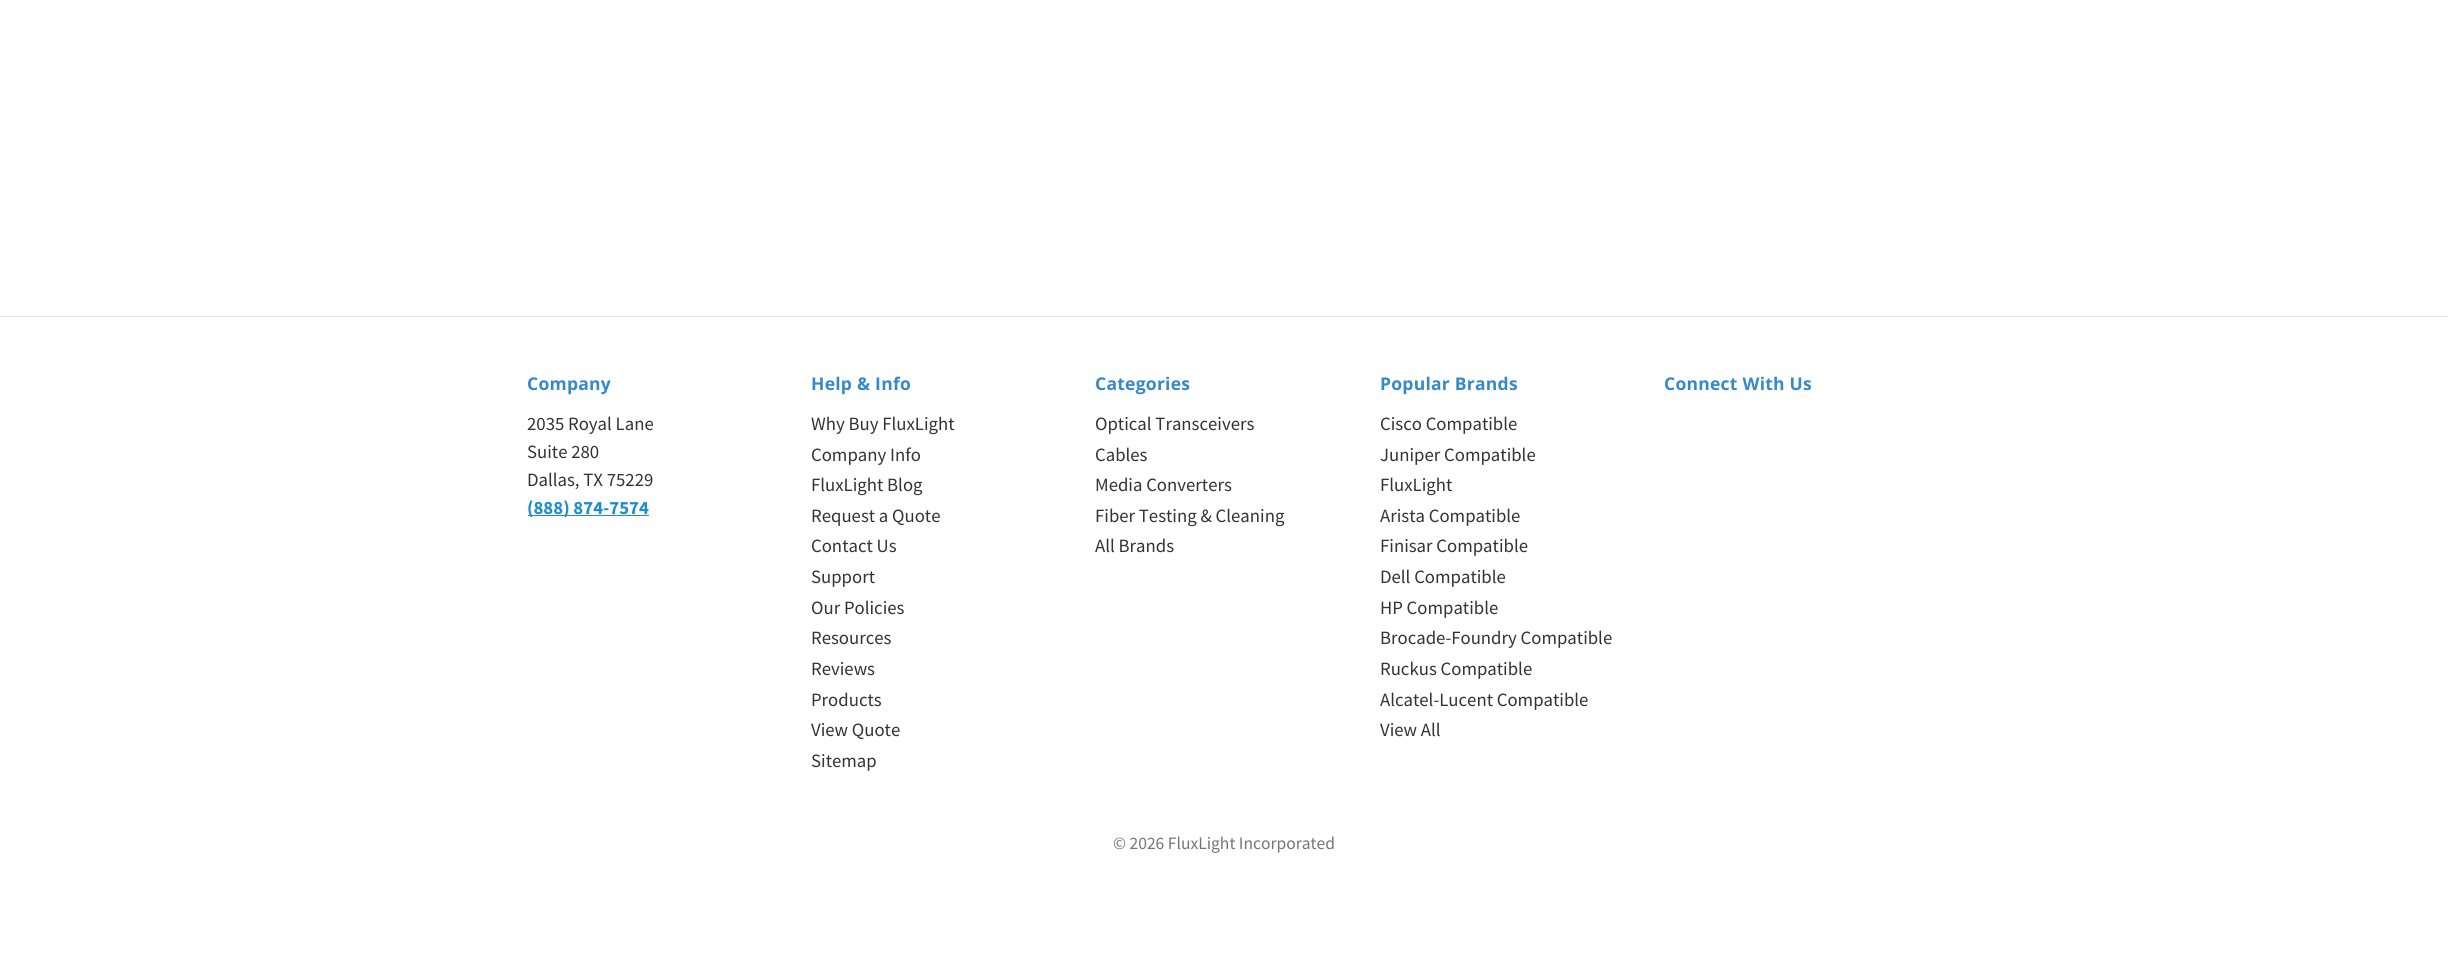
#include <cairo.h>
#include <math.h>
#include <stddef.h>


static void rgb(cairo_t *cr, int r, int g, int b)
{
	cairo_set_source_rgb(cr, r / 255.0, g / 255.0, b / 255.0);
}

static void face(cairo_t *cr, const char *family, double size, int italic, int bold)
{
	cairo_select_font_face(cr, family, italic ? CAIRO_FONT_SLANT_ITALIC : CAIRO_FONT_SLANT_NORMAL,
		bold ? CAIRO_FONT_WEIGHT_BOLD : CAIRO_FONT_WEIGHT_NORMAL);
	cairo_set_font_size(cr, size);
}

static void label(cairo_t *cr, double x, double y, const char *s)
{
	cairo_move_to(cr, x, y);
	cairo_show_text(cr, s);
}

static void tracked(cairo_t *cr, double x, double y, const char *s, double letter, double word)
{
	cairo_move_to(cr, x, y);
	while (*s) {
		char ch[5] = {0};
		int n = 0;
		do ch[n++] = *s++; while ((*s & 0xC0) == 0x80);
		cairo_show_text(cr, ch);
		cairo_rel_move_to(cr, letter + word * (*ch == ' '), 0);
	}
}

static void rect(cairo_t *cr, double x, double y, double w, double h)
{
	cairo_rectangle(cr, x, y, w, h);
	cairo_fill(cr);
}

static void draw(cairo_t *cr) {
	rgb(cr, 255, 255, 255);
	cairo_paint(cr);
	rgb(cr, 229, 229, 229);
	rect(cr, 0, 316, 2448, 1);
	face(cr, "Open Sans", 17.5, 0, 1);
	rgb(cr, 53, 137, 201);
	tracked(cr, 527, 390, "Company", 0.25, 0);
	face(cr, "Source Sans Pro", 18.75, 0, 0);
	rgb(cr, 51, 51, 51);
	label(cr, 527, 430, "2035 Royal Lane");
	label(cr, 527, 458, "Suite 280");
	label(cr, 527, 486, "Dallas, TX 75229");
	rgb(cr, 29, 141, 210);
	rect(cr, 528, 515, 121, 1);
	face(cr, "Source Sans Pro", 18.75, 0, 1);
	label(cr, 527, 514, "(888) 874-7574");
	face(cr, "Open Sans", 17.5, 0, 1);
	rgb(cr, 53, 137, 201);
	tracked(cr, 811, 390, "Help & Info", 0.25, 0);
	face(cr, "Source Sans Pro", 18.75, 0, 0);
	rgb(cr, 51, 51, 51);
	label(cr, 811, 430, "Why Buy FluxLight");
	label(cr, 811, 461, "Company Info");
	label(cr, 811, 491, "FluxLight Blog");
	label(cr, 811, 522, "Request a Quote");
	label(cr, 811, 552, "Contact Us");
	label(cr, 811, 583, "Support");
	label(cr, 811, 614, "Our Policies");
	label(cr, 811, 644, "Resources");
	label(cr, 811, 675, "Reviews");
	label(cr, 811, 706, "Products");
	label(cr, 811, 736, "View Quote");
	label(cr, 811, 767, "Sitemap");
	face(cr, "Open Sans", 17.5, 0, 1);
	rgb(cr, 53, 137, 201);
	tracked(cr, 1095, 390, "Categories", 0.25, 0);
	face(cr, "Source Sans Pro", 18.75, 0, 0);
	rgb(cr, 51, 51, 51);
	label(cr, 1095, 430, "Optical Transceivers");
	label(cr, 1095, 461, "Cables");
	label(cr, 1095, 491, "Media Converters");
	label(cr, 1095, 522, "Fiber Testing & Cleaning");
	label(cr, 1095, 552, "All Brands");
	face(cr, "Open Sans", 17.5, 0, 1);
	rgb(cr, 53, 137, 201);
	tracked(cr, 1380, 390, "Popular Brands", 0.25, 0);
	face(cr, "Source Sans Pro", 18.75, 0, 0);
	rgb(cr, 51, 51, 51);
	label(cr, 1380, 430, "Cisco Compatible");
	label(cr, 1380, 461, "Juniper Compatible");
	label(cr, 1380, 491, "FluxLight");
	label(cr, 1380, 522, "Arista Compatible");
	label(cr, 1380, 552, "Finisar Compatible");
	label(cr, 1380, 583, "Dell Compatible");
	label(cr, 1380, 614, "HP Compatible");
	label(cr, 1380, 644, "Brocade-Foundry Compatible");
	label(cr, 1380, 675, "Ruckus Compatible");
	label(cr, 1380, 706, "Alcatel-Lucent Compatible");
	label(cr, 1380, 736, "View All");
	face(cr, "Open Sans", 17.5, 0, 1);
	rgb(cr, 53, 137, 201);
	tracked(cr, 1664, 390, "Connect With Us", 0.25, 0);
	face(cr, "Source Sans Pro", 17.5, 0, 0);
	rgb(cr, 117, 117, 117);
	label(cr, 1113, 849, "© 2026 FluxLight Incorporated");
}

int main(void) {
	cairo_surface_t *surface = cairo_image_surface_create(CAIRO_FORMAT_RGB24, 2448, 976);
	cairo_t *cr = cairo_create(surface);
	cairo_font_options_t *options = cairo_font_options_create();
	cairo_font_options_set_hint_metrics(options, CAIRO_HINT_METRICS_OFF);
	cairo_font_options_set_hint_style(options, CAIRO_HINT_STYLE_NONE);
	cairo_set_font_options(cr, options);
	cairo_set_miter_limit(cr, 4);
	draw(cr);
	cairo_surface_write_to_png(surface, "render.png");
	cairo_font_options_destroy(options);
	cairo_destroy(cr);
	cairo_surface_destroy(surface);
	return 0;
}
